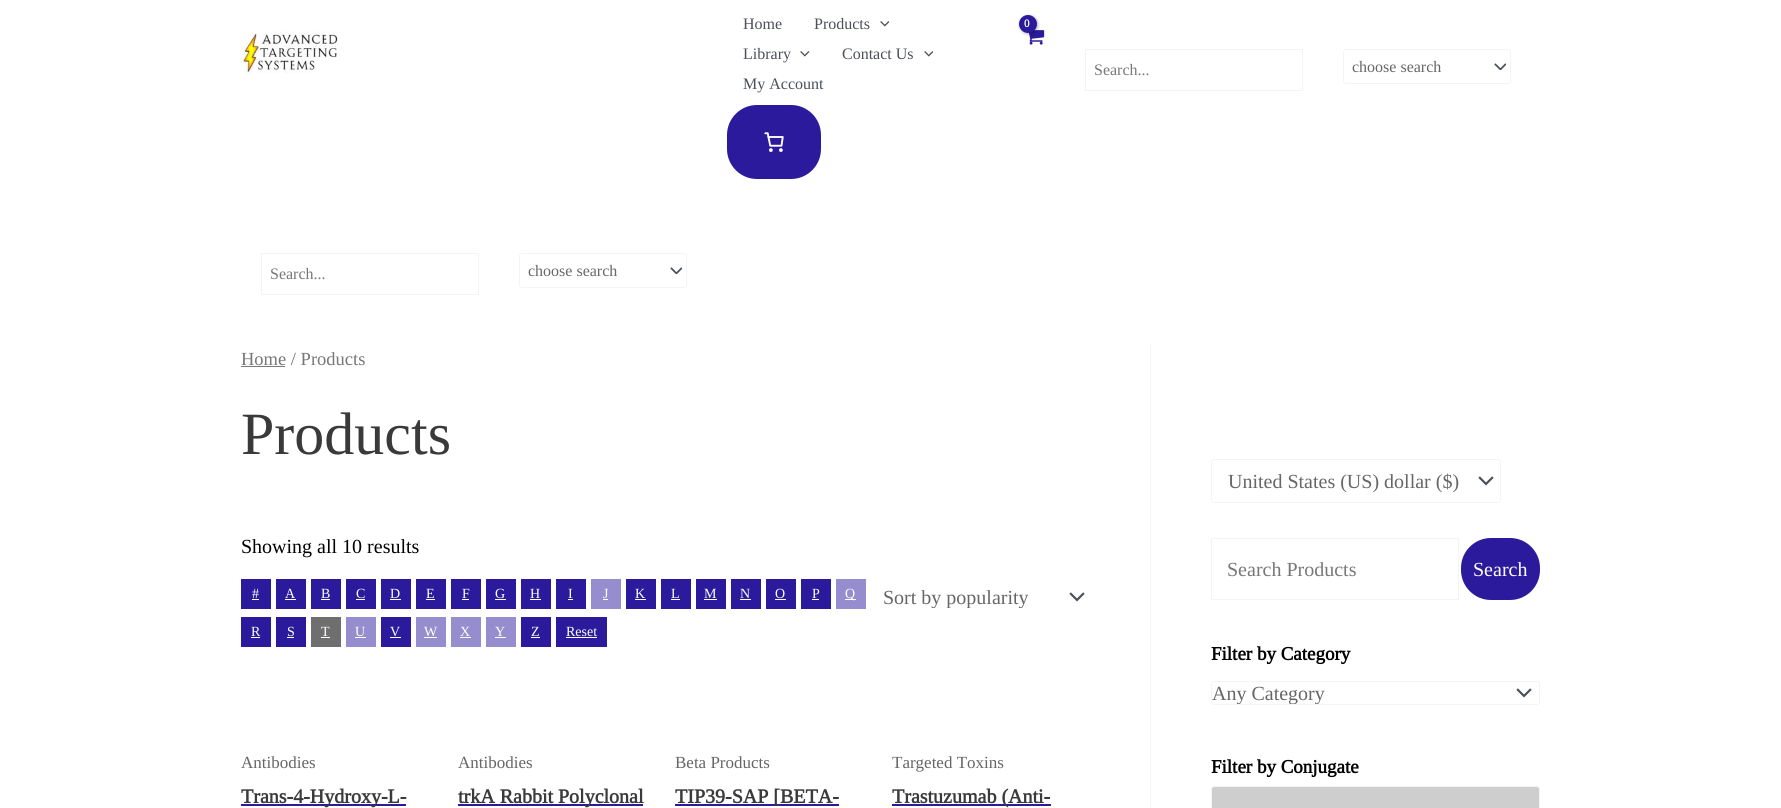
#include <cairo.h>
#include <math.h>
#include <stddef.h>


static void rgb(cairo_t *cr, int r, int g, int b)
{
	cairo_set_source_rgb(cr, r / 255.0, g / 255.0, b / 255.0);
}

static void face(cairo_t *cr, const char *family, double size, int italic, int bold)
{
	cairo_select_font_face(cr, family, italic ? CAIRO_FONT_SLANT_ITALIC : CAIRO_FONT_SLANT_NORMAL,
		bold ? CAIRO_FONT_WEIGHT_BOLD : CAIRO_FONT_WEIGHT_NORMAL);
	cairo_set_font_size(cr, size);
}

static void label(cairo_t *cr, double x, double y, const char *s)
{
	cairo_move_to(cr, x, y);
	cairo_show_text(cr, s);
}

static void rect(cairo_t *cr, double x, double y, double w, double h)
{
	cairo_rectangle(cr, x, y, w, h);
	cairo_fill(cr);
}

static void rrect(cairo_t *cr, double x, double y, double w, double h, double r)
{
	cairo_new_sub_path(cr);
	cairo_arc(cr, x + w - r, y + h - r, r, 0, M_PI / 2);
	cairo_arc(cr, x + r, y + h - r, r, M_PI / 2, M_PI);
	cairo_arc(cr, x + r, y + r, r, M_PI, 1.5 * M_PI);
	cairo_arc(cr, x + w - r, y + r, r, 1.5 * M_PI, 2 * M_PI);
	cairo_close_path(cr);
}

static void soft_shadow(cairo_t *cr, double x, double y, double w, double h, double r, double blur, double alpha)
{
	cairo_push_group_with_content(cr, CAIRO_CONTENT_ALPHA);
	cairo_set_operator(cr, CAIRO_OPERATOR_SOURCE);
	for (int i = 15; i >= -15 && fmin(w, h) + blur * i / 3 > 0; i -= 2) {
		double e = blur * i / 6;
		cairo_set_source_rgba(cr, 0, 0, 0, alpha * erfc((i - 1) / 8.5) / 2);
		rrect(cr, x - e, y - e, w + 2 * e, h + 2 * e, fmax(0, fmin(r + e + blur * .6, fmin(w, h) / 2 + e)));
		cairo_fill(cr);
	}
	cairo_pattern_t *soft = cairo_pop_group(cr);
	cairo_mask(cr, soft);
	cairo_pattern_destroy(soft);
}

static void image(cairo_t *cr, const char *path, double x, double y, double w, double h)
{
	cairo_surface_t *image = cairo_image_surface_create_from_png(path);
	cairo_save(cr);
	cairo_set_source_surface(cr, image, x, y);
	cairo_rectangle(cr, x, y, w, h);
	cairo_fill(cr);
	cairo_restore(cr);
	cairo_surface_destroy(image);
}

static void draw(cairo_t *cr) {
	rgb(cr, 255, 255, 255);
	cairo_paint(cr);
	image(cr, "image0.png", 241, 31, 97, 43);
	face(cr, "Tinos", 16, 0, 0);
	rgb(cr, 75, 79, 88);
	label(cr, 743, 29, "Home");
	label(cr, 814, 29, "Products");
	image(cr, "image1.png", 880, 21, 9, 6);
	label(cr, 743, 59, "Library");
	image(cr, "image2.png", 800, 51, 10, 6);
	label(cr, 842, 59, "Contact Us");
	image(cr, "image1.png", 924, 51, 9, 6);
	label(cr, 743, 89, "My Account");
	image(cr, "image3.png", 1028, 30, 17, 15);
	rgb(cr, 0, 0, 0);
	soft_shadow(cr, 1020, 16, 18, 18, 9, 1.5, 0.3);
	rgb(cr, 44, 26, 156);
	cairo_arc(cr, 1028, 24, 9, 0, 2 * M_PI);
	cairo_fill(cr);
	face(cr, "Tinos", 11, 0, 1);
	rgb(cr, 255, 255, 255);
	label(cr, 1024, 27, "0");
	cairo_rectangle(cr, 1085.5, 49.5, 217, 41);
	rgb(cr, 242, 245, 247);
	cairo_set_line_width(cr, 1);
	cairo_stroke(cr);
	face(cr, "Tinos", 16, 0, 0);
	rgb(cr, 119, 119, 119);
	label(cr, 1094, 75, "Search...");
	image(cr, "image4.png", 1494, 63, 12, 7);
	rrect(cr, 1343.5, 49.5, 167, 34, 2.5);
	rgb(cr, 242, 245, 247);
	cairo_stroke(cr);
	rgb(cr, 102, 102, 102);
	label(cr, 1352, 72, "choose search");
	rgb(cr, 44, 26, 156);
	rrect(cr, 728, 106, 92, 72, 29);
	cairo_fill_preserve(cr);
	cairo_set_line_width(cr, 2);
	cairo_stroke(cr);
	image(cr, "image5.png", 764, 132, 20, 20);
	cairo_rectangle(cr, 261.5, 253.5, 217, 41);
	rgb(cr, 242, 245, 247);
	cairo_set_line_width(cr, 1);
	cairo_stroke(cr);
	rgb(cr, 119, 119, 119);
	label(cr, 270, 279, "Search...");
	image(cr, "image4.png", 670, 267, 12, 7);
	rrect(cr, 519.5, 253.5, 167, 34, 2.5);
	rgb(cr, 242, 245, 247);
	cairo_stroke(cr);
	rgb(cr, 102, 102, 102);
	label(cr, 528, 276, "choose search");
	rgb(cr, 242, 245, 247);
	rect(cr, 1150, 344, 1, 464);
	face(cr, "Tinos", 18.5, 0, 0);
	rgb(cr, 119, 119, 119);
	label(cr, 241, 365, "Home / Products");
	rect(cr, 241, 366, 44, 1);
	face(cr, "Tinos", 60, 0, 0);
	rgb(cr, 58, 58, 58);
	label(cr, 241, 454, "Products");
	face(cr, "Tinos", 20, 0, 0);
	rgb(cr, 0, 0, 0);
	label(cr, 241, 553, "Showing all 10 results");
	rgb(cr, 44, 26, 156);
	rect(cr, 241, 579, 30, 30);
	face(cr, "Tinos", 14, 0, 0);
	rgb(cr, 255, 255, 255);
	label(cr, 252, 598, "#");
	rect(cr, 252, 599, 7, 1);
	rgb(cr, 44, 26, 156);
	rect(cr, 276, 579, 30, 30);
	rgb(cr, 255, 255, 255);
	label(cr, 285, 598, "A");
	rect(cr, 285, 599, 11, 1);
	rgb(cr, 44, 26, 156);
	rect(cr, 311, 579, 30, 30);
	rgb(cr, 255, 255, 255);
	label(cr, 321, 598, "B");
	rect(cr, 321, 599, 9, 1);
	rgb(cr, 44, 26, 156);
	rect(cr, 346, 579, 30, 30);
	rgb(cr, 255, 255, 255);
	label(cr, 356, 598, "C");
	rect(cr, 356, 599, 9, 1);
	rgb(cr, 44, 26, 156);
	rect(cr, 381, 579, 30, 30);
	rgb(cr, 255, 255, 255);
	label(cr, 390, 598, "D");
	rect(cr, 390, 599, 11, 1);
	rgb(cr, 44, 26, 156);
	rect(cr, 416, 579, 30, 30);
	rgb(cr, 255, 255, 255);
	label(cr, 426, 598, "E");
	rect(cr, 426, 599, 9, 1);
	rgb(cr, 44, 26, 156);
	rect(cr, 451, 579, 30, 30);
	rgb(cr, 255, 255, 255);
	label(cr, 462, 598, "F");
	rect(cr, 462, 599, 7, 1);
	rgb(cr, 44, 26, 156);
	rect(cr, 486, 579, 30, 30);
	rgb(cr, 255, 255, 255);
	label(cr, 495, 598, "G");
	rect(cr, 495, 599, 11, 1);
	rgb(cr, 44, 26, 156);
	rect(cr, 521, 579, 30, 30);
	rgb(cr, 255, 255, 255);
	label(cr, 530, 598, "H");
	rect(cr, 530, 599, 11, 1);
	rgb(cr, 44, 26, 156);
	rect(cr, 556, 579, 30, 30);
	rgb(cr, 255, 255, 255);
	label(cr, 568, 598, "I");
	rect(cr, 568, 599, 5, 1);
	rgb(cr, 150, 141, 206);
	rect(cr, 591, 579, 30, 30);
	rgb(cr, 255, 255, 255);
	label(cr, 603, 598, "J");
	rect(cr, 603, 599, 5, 1);
	rgb(cr, 44, 26, 156);
	rect(cr, 626, 579, 30, 30);
	rgb(cr, 255, 255, 255);
	label(cr, 635, 598, "K");
	rect(cr, 635, 599, 11, 1);
	rgb(cr, 44, 26, 156);
	rect(cr, 661, 579, 30, 30);
	rgb(cr, 255, 255, 255);
	label(cr, 671, 598, "L");
	rect(cr, 671, 599, 9, 1);
	rgb(cr, 44, 26, 156);
	rect(cr, 696, 579, 30, 30);
	rgb(cr, 255, 255, 255);
	label(cr, 704, 598, "M");
	rect(cr, 704, 599, 13, 1);
	rgb(cr, 44, 26, 156);
	rect(cr, 731, 579, 30, 30);
	rgb(cr, 255, 255, 255);
	label(cr, 740, 598, "N");
	rect(cr, 740, 599, 11, 1);
	rgb(cr, 44, 26, 156);
	rect(cr, 766, 579, 30, 30);
	rgb(cr, 255, 255, 255);
	label(cr, 775, 598, "O");
	rect(cr, 775, 599, 11, 1);
	rgb(cr, 44, 26, 156);
	rect(cr, 801, 579, 30, 30);
	rgb(cr, 255, 255, 255);
	label(cr, 812, 598, "P");
	rect(cr, 812, 599, 7, 1);
	rgb(cr, 150, 141, 206);
	rect(cr, 836, 579, 30, 30);
	rgb(cr, 255, 255, 255);
	rect(cr, 845, 599, 11, 1);
	label(cr, 845, 598, "Q");
	rgb(cr, 44, 26, 156);
	rect(cr, 241, 617, 30, 30);
	rgb(cr, 255, 255, 255);
	label(cr, 251, 636, "R");
	rect(cr, 251, 637, 9, 1);
	rgb(cr, 44, 26, 156);
	rect(cr, 276, 617, 30, 30);
	rgb(cr, 255, 255, 255);
	label(cr, 287, 636, "S");
	rect(cr, 287, 637, 7, 1);
	rgb(cr, 111, 111, 111);
	rect(cr, 311, 617, 30, 30);
	rgb(cr, 255, 255, 255);
	label(cr, 321, 636, "T");
	rect(cr, 321, 637, 9, 1);
	rgb(cr, 150, 141, 206);
	rect(cr, 346, 617, 30, 30);
	rgb(cr, 255, 255, 255);
	label(cr, 355, 636, "U");
	rect(cr, 355, 637, 11, 1);
	rgb(cr, 44, 26, 156);
	rect(cr, 381, 617, 30, 30);
	rgb(cr, 255, 255, 255);
	label(cr, 390, 636, "V");
	rect(cr, 390, 637, 11, 1);
	rgb(cr, 150, 141, 206);
	rect(cr, 416, 617, 30, 30);
	rgb(cr, 255, 255, 255);
	label(cr, 424, 636, "W");
	rect(cr, 424, 637, 13, 1);
	rgb(cr, 150, 141, 206);
	rect(cr, 451, 617, 30, 30);
	rgb(cr, 255, 255, 255);
	label(cr, 460, 636, "X");
	rect(cr, 460, 637, 11, 1);
	rgb(cr, 150, 141, 206);
	rect(cr, 486, 617, 30, 30);
	rgb(cr, 255, 255, 255);
	label(cr, 495, 636, "Y");
	rect(cr, 495, 637, 11, 1);
	rgb(cr, 44, 26, 156);
	rect(cr, 521, 617, 30, 30);
	rgb(cr, 255, 255, 255);
	label(cr, 531, 636, "Z");
	rect(cr, 531, 637, 9, 1);
	rgb(cr, 44, 26, 156);
	rect(cr, 556, 617, 51, 30);
	rgb(cr, 255, 255, 255);
	label(cr, 566, 636, "Reset");
	rect(cr, 566, 637, 31, 1);
	image(cr, "image6.png", 1069, 592, 16, 10);
	cairo_save(cr);
	cairo_rectangle(cr, 883, 586, 197, 22);
	cairo_clip(cr);
	face(cr, "Tinos", 20, 0, 0);
	rgb(cr, 102, 102, 102);
	label(cr, 883, 604, "Sort by popularity");
	cairo_restore(cr);
	face(cr, "Tinos", 17, 0, 0);
	rgb(cr, 102, 102, 102);
	label(cr, 241, 768, "Antibodies");
	rgb(cr, 44, 26, 156);
	rect(cr, 241, 804, 165, 2);
	face(cr, "Tinos", 20, 0, 1);
	rgb(cr, 58, 58, 58);
	label(cr, 241, 803, "Trans-4-Hydroxy-L-");
	face(cr, "Tinos", 17, 0, 0);
	rgb(cr, 102, 102, 102);
	label(cr, 458, 768, "Antibodies");
	rgb(cr, 44, 26, 156);
	rect(cr, 458, 804, 185, 2);
	face(cr, "Tinos", 20, 0, 1);
	rgb(cr, 58, 58, 58);
	label(cr, 458, 803, "trkA Rabbit Polyclonal");
	face(cr, "Tinos", 17, 0, 0);
	rgb(cr, 102, 102, 102);
	label(cr, 675, 768, "Beta Products");
	rgb(cr, 44, 26, 156);
	rect(cr, 675, 804, 164, 2);
	face(cr, "Tinos", 20, 0, 1);
	rgb(cr, 58, 58, 58);
	label(cr, 675, 803, "TIP39-SAP [BETA-");
	face(cr, "Tinos", 17, 0, 0);
	rgb(cr, 102, 102, 102);
	label(cr, 892, 768, "Targeted Toxins");
	rgb(cr, 44, 26, 156);
	rect(cr, 892, 804, 159, 2);
	face(cr, "Tinos", 20, 0, 1);
	rgb(cr, 58, 58, 58);
	label(cr, 892, 803, "Trastuzumab (Anti-");
	image(cr, "image6.png", 1478, 476, 16, 10);
	rrect(cr, 1211.5, 459.5, 289, 43, 2.5);
	rgb(cr, 242, 245, 247);
	cairo_stroke(cr);
	face(cr, "Tinos", 20, 0, 0);
	rgb(cr, 102, 102, 102);
	label(cr, 1228, 488, "United States (US) dollar ($)");
	cairo_rectangle(cr, 1211.5, 538.5, 247, 61);
	rgb(cr, 242, 245, 247);
	cairo_stroke(cr);
	rgb(cr, 119, 119, 119);
	label(cr, 1227, 576, "Search Products");
	rgb(cr, 44, 26, 156);
	rrect(cr, 1462, 539, 77, 60, 29);
	cairo_fill_preserve(cr);
	cairo_set_line_width(cr, 2);
	cairo_stroke(cr);
	rgb(cr, 255, 255, 255);
	label(cr, 1473, 576, "Search");
	face(cr, "Tinos", 19, 0, 1);
	rgb(cr, 0, 0, 0);
	label(cr, 1211, 660, "Filter by Category");
	image(cr, "image6.png", 1516, 688, 16, 10);
	rrect(cr, 1211.5, 681.5, 328, 23, 2.5);
	rgb(cr, 242, 245, 247);
	cairo_set_line_width(cr, 1);
	cairo_stroke(cr);
	cairo_save(cr);
	cairo_rectangle(cr, 1212, 682, 327, 22);
	cairo_clip(cr);
	face(cr, "Tinos", 20, 0, 0);
	rgb(cr, 102, 102, 102);
	label(cr, 1212, 700, "Any Category");
	cairo_restore(cr);
	rgb(cr, 0, 0, 0);
	label(cr, 1211, 773, "Filter by Conjugate");
	rrect(cr, 1211.5, 786.5, 328, 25, 2.5);
	rgb(cr, 242, 245, 247);
	cairo_stroke(cr);
	rgb(cr, 206, 206, 206);
	cairo_new_path(cr);
	cairo_move_to(cr, 1214, 787);
	cairo_line_to(cr, 1537, 787);
	cairo_curve_to(cr, 1538, 787, 1539, 788, 1539, 789);
	cairo_line_to(cr, 1539, 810);
	cairo_line_to(cr, 1212, 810);
	cairo_line_to(cr, 1212, 789);
	cairo_curve_to(cr, 1212, 788, 1213, 787, 1214, 787);
	cairo_close_path(cr);
	cairo_fill(cr);
}

int main(void) {
	cairo_surface_t *surface = cairo_image_surface_create(CAIRO_FORMAT_RGB24, 1781, 808);
	cairo_t *cr = cairo_create(surface);
	cairo_font_options_t *options = cairo_font_options_create();
	cairo_font_options_set_hint_metrics(options, CAIRO_HINT_METRICS_OFF);
	cairo_font_options_set_hint_style(options, CAIRO_HINT_STYLE_NONE);
	cairo_set_font_options(cr, options);
	cairo_set_miter_limit(cr, 4);
	draw(cr);
	cairo_surface_write_to_png(surface, "render.png");
	cairo_font_options_destroy(options);
	cairo_destroy(cr);
	cairo_surface_destroy(surface);
	return 0;
}
